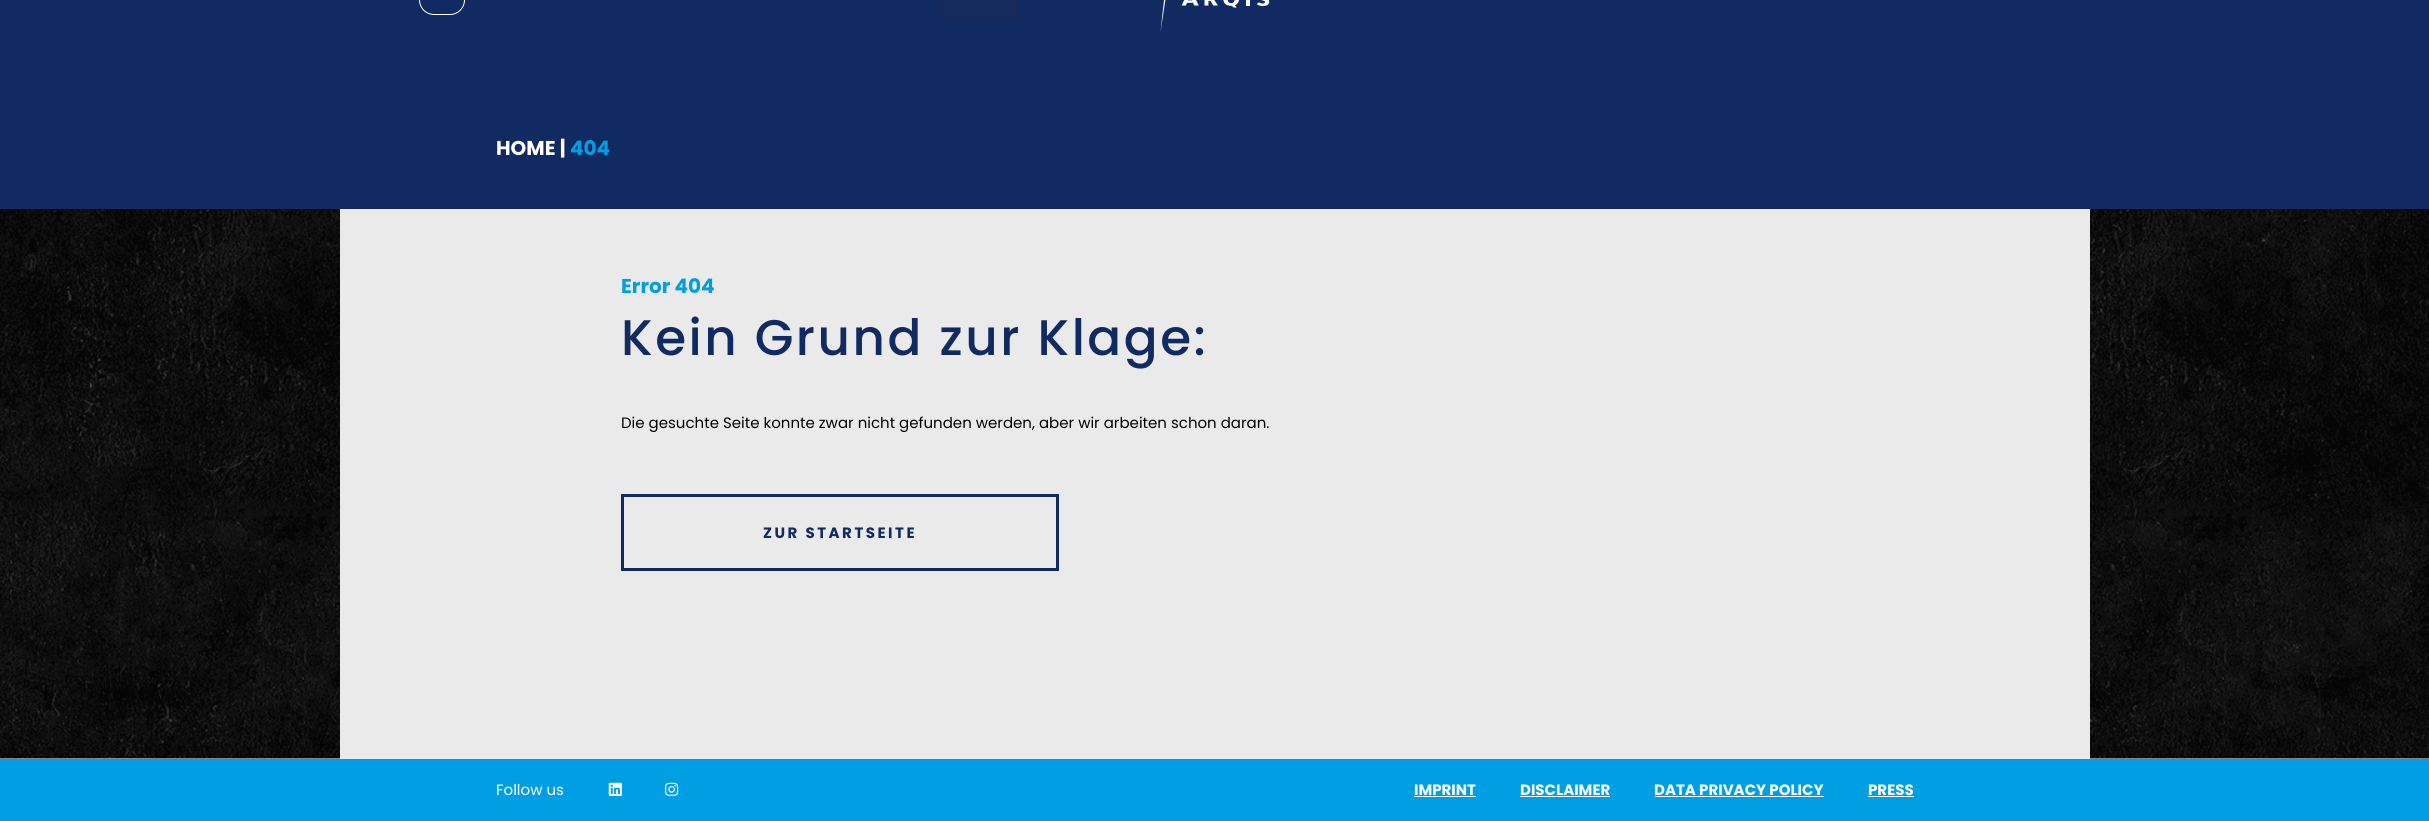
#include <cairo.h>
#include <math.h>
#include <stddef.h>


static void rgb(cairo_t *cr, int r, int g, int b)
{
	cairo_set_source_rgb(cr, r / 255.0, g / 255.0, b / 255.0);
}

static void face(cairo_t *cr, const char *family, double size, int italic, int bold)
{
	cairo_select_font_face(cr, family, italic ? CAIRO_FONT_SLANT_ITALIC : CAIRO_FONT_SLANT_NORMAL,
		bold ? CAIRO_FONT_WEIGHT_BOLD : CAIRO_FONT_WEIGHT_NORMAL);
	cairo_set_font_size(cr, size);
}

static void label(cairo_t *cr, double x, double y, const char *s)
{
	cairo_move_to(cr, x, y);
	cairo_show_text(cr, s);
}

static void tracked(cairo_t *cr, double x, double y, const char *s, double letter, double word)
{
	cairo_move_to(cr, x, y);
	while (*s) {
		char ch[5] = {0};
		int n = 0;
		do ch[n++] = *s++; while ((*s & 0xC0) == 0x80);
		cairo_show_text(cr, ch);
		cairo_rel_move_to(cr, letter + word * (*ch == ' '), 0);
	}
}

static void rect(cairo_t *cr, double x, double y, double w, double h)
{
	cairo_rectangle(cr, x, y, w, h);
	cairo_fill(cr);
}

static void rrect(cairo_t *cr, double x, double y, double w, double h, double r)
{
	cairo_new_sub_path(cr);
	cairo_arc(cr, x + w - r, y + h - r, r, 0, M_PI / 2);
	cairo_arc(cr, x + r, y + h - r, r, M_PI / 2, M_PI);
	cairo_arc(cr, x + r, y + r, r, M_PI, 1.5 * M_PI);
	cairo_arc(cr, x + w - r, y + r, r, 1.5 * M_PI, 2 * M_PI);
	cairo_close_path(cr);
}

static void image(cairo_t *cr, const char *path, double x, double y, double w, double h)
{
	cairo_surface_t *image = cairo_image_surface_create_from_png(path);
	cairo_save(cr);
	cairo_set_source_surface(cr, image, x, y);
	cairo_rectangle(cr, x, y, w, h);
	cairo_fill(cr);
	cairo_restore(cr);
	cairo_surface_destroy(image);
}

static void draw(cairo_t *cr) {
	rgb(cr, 255, 255, 255);
	cairo_paint(cr);
	rgb(cr, 17, 43, 98);
	rect(cr, 0, 0, 2429, 209);
	rrect(cr, 419.5, -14.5, 45, 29, 14.5);
	rgb(cr, 255, 255, 255);
	cairo_set_line_width(cr, 1);
	cairo_stroke(cr);
	image(cr, "image0.png", 942, 0, 78, 21);
	image(cr, "image1.png", 1160, 0, 110, 32);
	image(cr, "image2.png", 0, 209, 2429, 550);
	face(cr, "Poppins", 20, 0, 1);
	label(cr, 496, 155, "HOME |");
	rgb(cr, 0, 159, 227);
	label(cr, 570, 155, "404");
	rgb(cr, 234, 234, 234);
	rect(cr, 340, 209, 1750, 550);
	rgb(cr, 0, 159, 227);
	label(cr, 621, 293, "Error 404");
	face(cr, "Poppins Medium", 50, 0, 0);
	rgb(cr, 17, 43, 98);
	tracked(cr, 621, 355, "Kein Grund zur Klage:", 2.5, 0);
	face(cr, "Poppins", 15, 0, 0);
	rgb(cr, 0, 0, 0);
	label(cr, 621, 428, "Die gesuchte Seite konnte zwar nicht gefunden werden, aber wir arbeiten schon daran.");
	cairo_rectangle(cr, 622.5, 495.5, 435, 74);
	rgb(cr, 17, 43, 98);
	cairo_set_line_width(cr, 3);
	cairo_stroke(cr);
	face(cr, "Poppins", 15, 0, 1);
	tracked(cr, 763, 538, "ZUR STARTSEITE", 2.5, 0);
	rgb(cr, 0, 159, 227);
	rect(cr, 0, 759, 2429, 62);
	face(cr, "Poppins", 15, 0, 0);
	rgb(cr, 255, 255, 255);
	label(cr, 496, 795, "Follow us");
	image(cr, "image3.png", 608, 782, 14, 14);
	image(cr, "image4.png", 665, 782, 14, 14);
	face(cr, "Poppins", 15, 0, 1);
	label(cr, 1414, 795, "IMPRINT");
	rect(cr, 1414, 796, 62, 1);
	label(cr, 1520, 795, "DISCLAIMER");
	rect(cr, 1520, 796, 90, 1);
	label(cr, 1654, 795, "DATA PRIVACY POLICY");
	rect(cr, 1655, 796, 169, 1);
	label(cr, 1868, 795, "PRESS");
	rect(cr, 1868, 796, 46, 1);
}

int main(void) {
	cairo_surface_t *surface = cairo_image_surface_create(CAIRO_FORMAT_RGB24, 2429, 821);
	cairo_t *cr = cairo_create(surface);
	cairo_font_options_t *options = cairo_font_options_create();
	cairo_font_options_set_hint_metrics(options, CAIRO_HINT_METRICS_OFF);
	cairo_font_options_set_hint_style(options, CAIRO_HINT_STYLE_NONE);
	cairo_set_font_options(cr, options);
	cairo_set_miter_limit(cr, 4);
	draw(cr);
	cairo_surface_write_to_png(surface, "render.png");
	cairo_font_options_destroy(options);
	cairo_destroy(cr);
	cairo_surface_destroy(surface);
	return 0;
}
